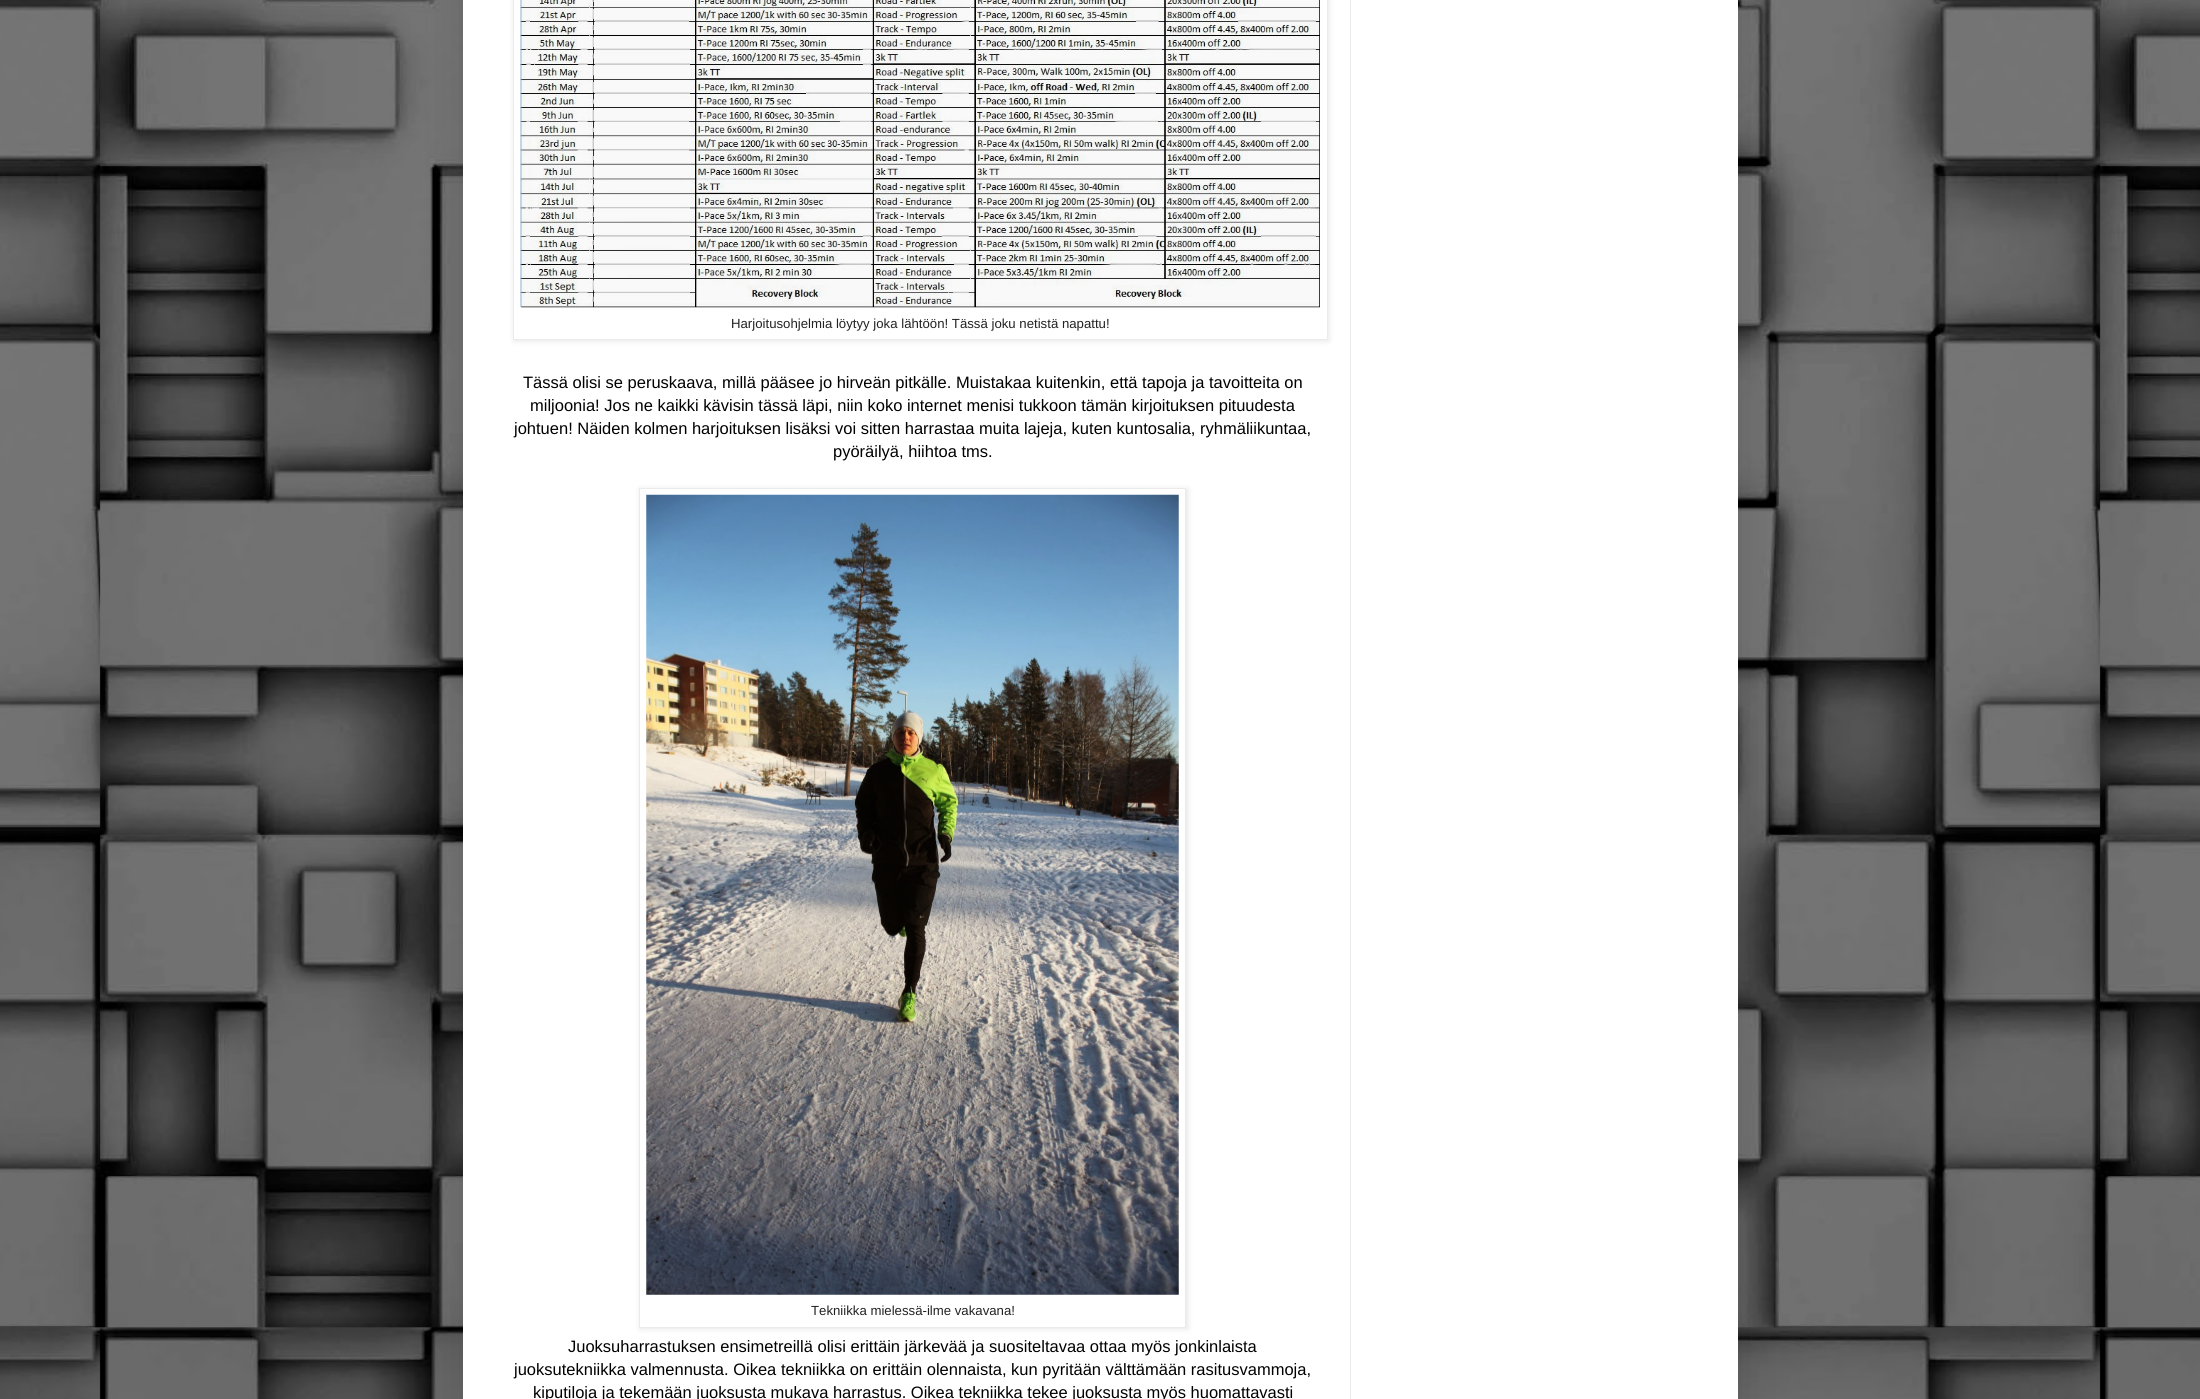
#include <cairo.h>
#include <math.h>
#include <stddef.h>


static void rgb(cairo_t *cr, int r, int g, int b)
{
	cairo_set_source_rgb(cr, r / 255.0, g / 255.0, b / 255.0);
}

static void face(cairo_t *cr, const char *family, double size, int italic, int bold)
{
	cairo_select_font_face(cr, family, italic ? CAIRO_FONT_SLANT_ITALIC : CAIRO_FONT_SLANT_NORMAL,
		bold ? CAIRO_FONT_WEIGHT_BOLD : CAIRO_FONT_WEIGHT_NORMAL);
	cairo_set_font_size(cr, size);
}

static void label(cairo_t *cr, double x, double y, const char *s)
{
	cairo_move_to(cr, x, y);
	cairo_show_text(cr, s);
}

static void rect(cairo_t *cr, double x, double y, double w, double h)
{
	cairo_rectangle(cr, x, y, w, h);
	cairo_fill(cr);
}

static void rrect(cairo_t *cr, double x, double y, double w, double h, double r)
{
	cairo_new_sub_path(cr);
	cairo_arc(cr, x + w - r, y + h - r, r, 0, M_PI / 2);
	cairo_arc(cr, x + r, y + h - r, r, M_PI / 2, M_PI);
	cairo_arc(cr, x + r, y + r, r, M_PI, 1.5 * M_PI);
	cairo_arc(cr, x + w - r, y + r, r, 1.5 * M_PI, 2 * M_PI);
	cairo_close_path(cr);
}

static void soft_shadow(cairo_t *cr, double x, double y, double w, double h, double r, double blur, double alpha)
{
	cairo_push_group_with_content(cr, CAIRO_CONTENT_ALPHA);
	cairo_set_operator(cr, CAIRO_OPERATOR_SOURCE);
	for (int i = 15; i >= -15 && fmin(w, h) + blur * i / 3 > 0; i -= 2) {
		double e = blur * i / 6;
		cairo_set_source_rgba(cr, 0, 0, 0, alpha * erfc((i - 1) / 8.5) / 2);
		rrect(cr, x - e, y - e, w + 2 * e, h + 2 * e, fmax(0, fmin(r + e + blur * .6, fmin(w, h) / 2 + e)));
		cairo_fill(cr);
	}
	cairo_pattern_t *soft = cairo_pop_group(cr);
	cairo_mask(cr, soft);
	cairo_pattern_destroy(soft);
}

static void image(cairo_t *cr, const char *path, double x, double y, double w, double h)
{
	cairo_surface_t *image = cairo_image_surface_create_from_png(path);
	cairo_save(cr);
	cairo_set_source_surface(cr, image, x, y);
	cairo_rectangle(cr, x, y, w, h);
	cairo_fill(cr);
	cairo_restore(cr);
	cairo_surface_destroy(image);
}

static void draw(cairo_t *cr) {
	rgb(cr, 255, 255, 255);
	cairo_paint(cr);
	image(cr, "image0.png", 0, 0, 2200, 1399);
	rgb(cr, 0, 0, 0);
	soft_shadow(cr, 463, -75, 1275, 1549, 0, 25, 0.15);
	rgb(cr, 255, 255, 255);
	rect(cr, 463, 0, 1275, 1399);
	rgb(cr, 0, 0, 0);
	soft_shadow(cr, 514, -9, 815, 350, 0, 3, 0.1);
	rgb(cr, 255, 255, 255);
	cairo_rectangle(cr, 513.5, -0.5, 814, 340);
	cairo_fill_preserve(cr);
	rgb(cr, 235, 235, 235);
	cairo_set_line_width(cr, 1);
	cairo_stroke(cr);
	image(cr, "image1.png", 520, 0, 800, 308);
	face(cr, "Liberation Sans", 13.2, 0, 0);
	rgb(cr, 34, 34, 34);
	label(cr, 731, 328, "Harjoitusohjelmia löytyy joka lähtöön! Tässä joku netistä napattu!");
	face(cr, "Liberation Sans", 16.5, 0, 0);
	rgb(cr, 0, 0, 0);
	label(cr, 523, 388, "Tässä olisi se peruskaava, millä pääsee jo hirveän pitkälle. Muistakaa kuitenkin, että tapoja ja tavoitteita on");
	label(cr, 530, 411, "miljoonia! Jos ne kaikki kävisin tässä läpi, niin koko internet menisi tukkoon tämän kirjoituksen pituudesta");
	label(cr, 514, 434, "johtuen! Näiden kolmen harjoituksen lisäksi voi sitten harrastaa muita lajeja, kuten kuntosalia, ryhmäliikuntaa,");
	label(cr, 833, 457, "pyöräilyä, hiihtoa tms.");
	rgb(cr, 0, 0, 0);
	soft_shadow(cr, 640, 489, 548, 840, 0, 3, 0.1);
	rgb(cr, 255, 255, 255);
	cairo_rectangle(cr, 639.5, 488.5, 546, 839);
	cairo_fill_preserve(cr);
	rgb(cr, 235, 235, 235);
	cairo_stroke(cr);
	image(cr, "image2.png", 646, 494, 533, 801);
	face(cr, "Liberation Sans", 13.2, 0, 0);
	rgb(cr, 34, 34, 34);
	label(cr, 811, 1315, "Tekniikka mielessä-ilme vakavana!");
	face(cr, "Liberation Sans", 16.5, 0, 0);
	rgb(cr, 0, 0, 0);
	label(cr, 568, 1352, "Juoksuharrastuksen ensimetreillä olisi erittäin järkevää ja suositeltavaa ottaa myös jonkinlaista");
	label(cr, 514, 1375, "juoksutekniikka valmennusta. Oikea tekniikka on erittäin olennaista, kun pyritään välttämään rasitusvammoja,");
	label(cr, 533, 1398, "kiputiloja ja tekemään juoksusta mukava harrastus. Oikea tekniikka tekee juoksusta myös huomattavasti");
	rgb(cr, 235, 235, 235);
	rect(cr, 1350, 0, 1, 1399);
}

int main(void) {
	cairo_surface_t *surface = cairo_image_surface_create(CAIRO_FORMAT_RGB24, 2200, 1399);
	cairo_t *cr = cairo_create(surface);
	cairo_font_options_t *options = cairo_font_options_create();
	cairo_font_options_set_hint_metrics(options, CAIRO_HINT_METRICS_OFF);
	cairo_font_options_set_hint_style(options, CAIRO_HINT_STYLE_NONE);
	cairo_set_font_options(cr, options);
	cairo_set_miter_limit(cr, 4);
	draw(cr);
	cairo_surface_write_to_png(surface, "render.png");
	cairo_font_options_destroy(options);
	cairo_destroy(cr);
	cairo_surface_destroy(surface);
	return 0;
}
